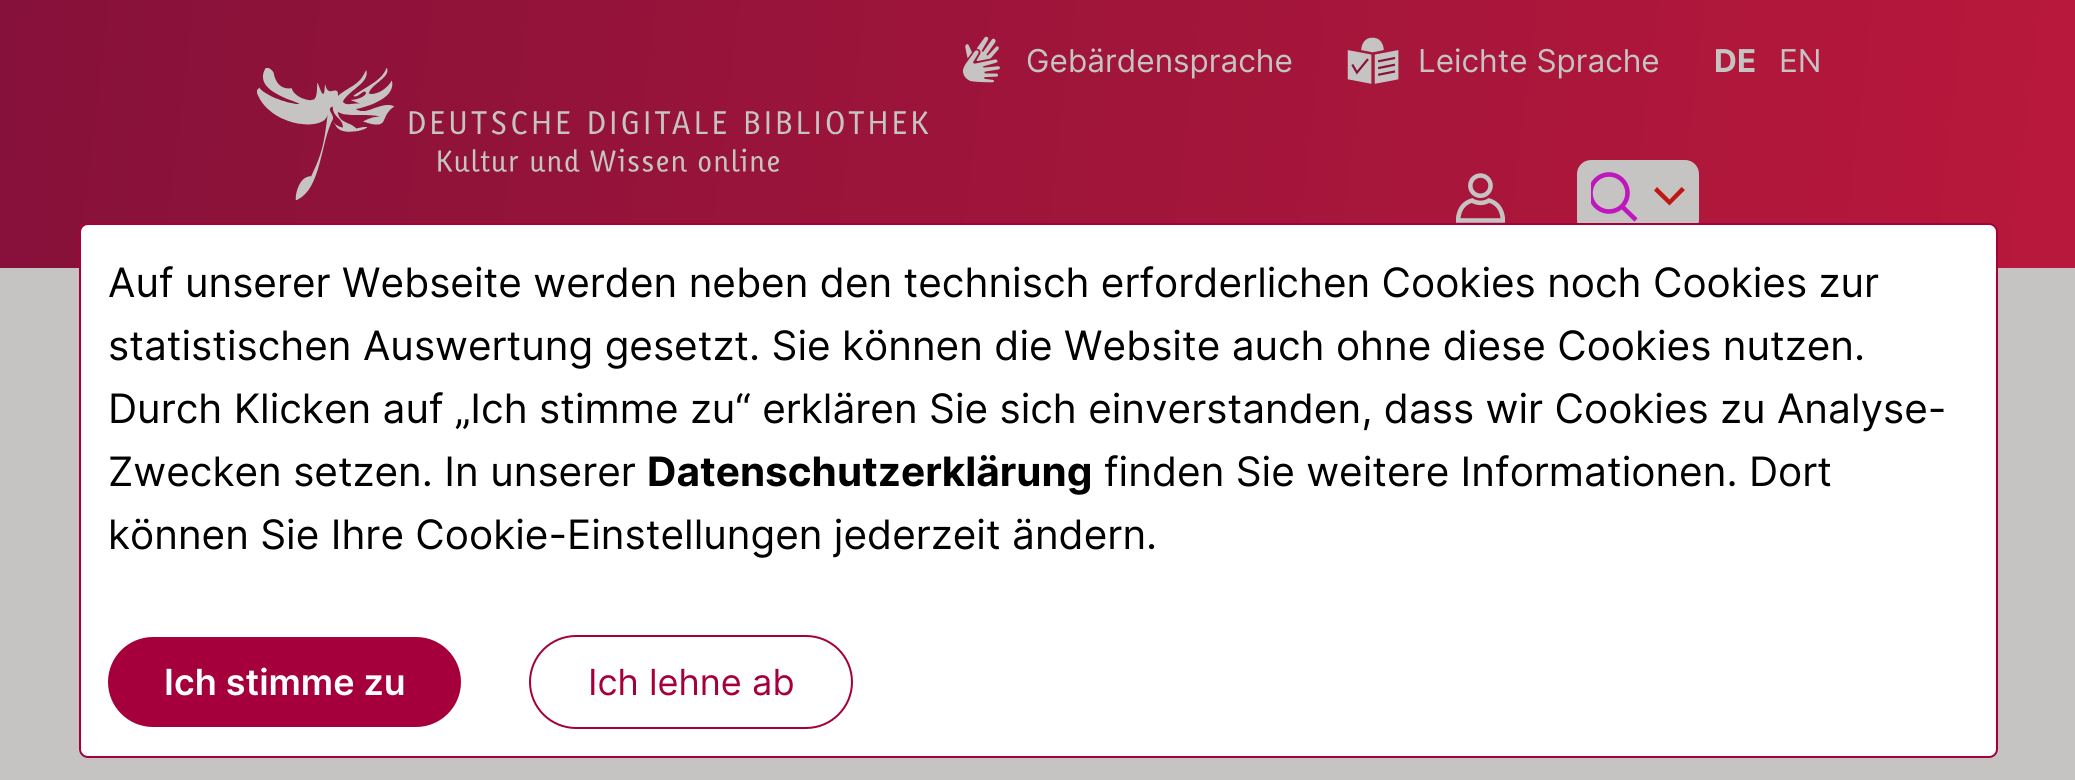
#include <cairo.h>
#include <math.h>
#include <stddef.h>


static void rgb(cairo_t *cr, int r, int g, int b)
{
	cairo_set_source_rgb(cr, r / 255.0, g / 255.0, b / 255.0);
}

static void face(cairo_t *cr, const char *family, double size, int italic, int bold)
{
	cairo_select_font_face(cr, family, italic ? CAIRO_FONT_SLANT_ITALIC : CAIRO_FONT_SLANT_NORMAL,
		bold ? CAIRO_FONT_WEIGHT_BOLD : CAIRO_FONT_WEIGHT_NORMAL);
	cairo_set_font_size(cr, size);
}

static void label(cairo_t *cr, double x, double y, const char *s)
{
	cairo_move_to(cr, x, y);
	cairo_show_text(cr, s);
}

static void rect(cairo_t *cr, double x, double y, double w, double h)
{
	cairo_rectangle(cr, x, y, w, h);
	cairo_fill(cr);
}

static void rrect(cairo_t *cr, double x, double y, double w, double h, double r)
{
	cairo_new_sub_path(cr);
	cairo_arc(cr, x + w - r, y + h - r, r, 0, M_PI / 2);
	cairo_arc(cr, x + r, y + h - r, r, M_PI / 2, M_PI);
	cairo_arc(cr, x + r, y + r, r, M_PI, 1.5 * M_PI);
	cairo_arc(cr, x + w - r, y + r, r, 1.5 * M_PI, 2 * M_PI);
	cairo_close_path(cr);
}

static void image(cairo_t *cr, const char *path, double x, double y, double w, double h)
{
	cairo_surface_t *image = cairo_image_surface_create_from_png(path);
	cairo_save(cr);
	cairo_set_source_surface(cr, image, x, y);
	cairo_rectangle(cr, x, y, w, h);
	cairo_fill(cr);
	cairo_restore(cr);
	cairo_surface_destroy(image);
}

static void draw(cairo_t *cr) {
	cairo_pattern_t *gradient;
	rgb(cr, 197, 196, 195);
	cairo_paint(cr);
	gradient = cairo_pattern_create_linear(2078, 258, -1.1, 9);
	cairo_pattern_add_color_stop_rgba(gradient, 0, 0.722, 0.094, 0.231, 1);
	cairo_pattern_add_color_stop_rgba(gradient, 1, 0.525, 0.067, 0.227, 1);
	cairo_set_source(cr, gradient);
	cairo_pattern_destroy(gradient);
	rect(cr, 0, 0, 2075, 268);
	image(cr, "image0.png", 962, 36, 38, 47);
	face(cr, "Inter", 31.5, 0, 0);
	rgb(cr, 197, 196, 195);
	label(cr, 1026, 72, "Gebärdensprache");
	image(cr, "image1.png", 1347, 37, 52, 47);
	label(cr, 1418, 72, "Leichte Sprache");
	face(cr, "Inter", 31.5, 0, 1);
	label(cr, 1714, 72, "DE");
	face(cr, "Inter", 31.5, 0, 0);
	label(cr, 1779, 72, "EN");
	image(cr, "image2.png", 1456, 173, 49, 50);
	rrect(cr, 1577, 160, 122, 74, 14);
	cairo_fill(cr);
	cairo_new_path(cr);
	cairo_move_to(cr, 1622, 206.5);
	cairo_line_to(cr, 1636, 220);
	rgb(cr, 191, 23, 189);
	cairo_set_line_width(cr, 4.6);
	cairo_stroke(cr);
	cairo_save(cr);
	cairo_rectangle(cr, 1591, 160, 49, 74);
	cairo_clip(cr);
	cairo_arc(cr, 1609, 193, 18.5, 0, 2 * M_PI);
	cairo_stroke(cr);
	cairo_restore(cr);
	rgb(cr, 191, 23, 22);
	cairo_set_fill_rule(cr, CAIRO_FILL_RULE_EVEN_ODD);
	cairo_new_path(cr);
	cairo_move_to(cr, 1685, 190);
	cairo_line_to(cr, 1669.5, 205.5);
	cairo_line_to(cr, 1654, 190.5);
	cairo_line_to(cr, 1657, 187);
	cairo_line_to(cr, 1669.5, 199.5);
	cairo_line_to(cr, 1681.5, 187);
	cairo_close_path(cr);
	cairo_fill(cr);
	image(cr, "image3.png", 257, 68, 672, 132);
	rgb(cr, 255, 255, 255);
	rrect(cr, 80, 224, 1917, 533, 8);
	cairo_fill_preserve(cr);
	rgb(cr, 165, 0, 59);
	cairo_set_line_width(cr, 2);
	cairo_stroke(cr);
	face(cr, "Inter", 40.5, 0, 0);
	rgb(cr, 0, 0, 0);
	label(cr, 108, 297, "Auf unserer Webseite werden neben den technisch erforderlichen Cookies noch Cookies zur");
	label(cr, 108, 360, "statistischen Auswertung gesetzt. Sie können die Website auch ohne diese Cookies nutzen.");
	label(cr, 108, 423, "Durch Klicken auf „Ich stimme zu“ erklären Sie sich einverstanden, dass wir Cookies zu Analyse-");
	label(cr, 108, 486, "Zwecken setzen. In unserer");
	face(cr, "Inter", 40.5, 0, 1);
	label(cr, 647, 486, "Datenschutzerklärung");
	face(cr, "Inter", 40.5, 0, 0);
	label(cr, 1104, 486, "finden Sie weitere Informationen. Dort");
	label(cr, 108, 549, "können Sie Ihre Cookie-Einstellungen jederzeit ändern.");
	rgb(cr, 165, 0, 59);
	rrect(cr, 108, 637, 353, 90, 45);
	cairo_fill(cr);
	face(cr, "Inter SemiBold", 36, 0, 0);
	rgb(cr, 255, 255, 255);
	label(cr, 164, 695, "Ich stimme zu");
	rrect(cr, 530, 636, 322, 92, 46);
	rgb(cr, 165, 0, 59);
	cairo_stroke(cr);
	face(cr, "Inter", 36, 0, 0);
	label(cr, 588, 695, "Ich lehne ab");
}

int main(void) {
	cairo_surface_t *surface = cairo_image_surface_create(CAIRO_FORMAT_RGB24, 2075, 780);
	cairo_t *cr = cairo_create(surface);
	cairo_font_options_t *options = cairo_font_options_create();
	cairo_font_options_set_hint_metrics(options, CAIRO_HINT_METRICS_OFF);
	cairo_font_options_set_hint_style(options, CAIRO_HINT_STYLE_NONE);
	cairo_set_font_options(cr, options);
	cairo_set_miter_limit(cr, 4);
	draw(cr);
	cairo_surface_write_to_png(surface, "render.png");
	cairo_font_options_destroy(options);
	cairo_destroy(cr);
	cairo_surface_destroy(surface);
	return 0;
}
